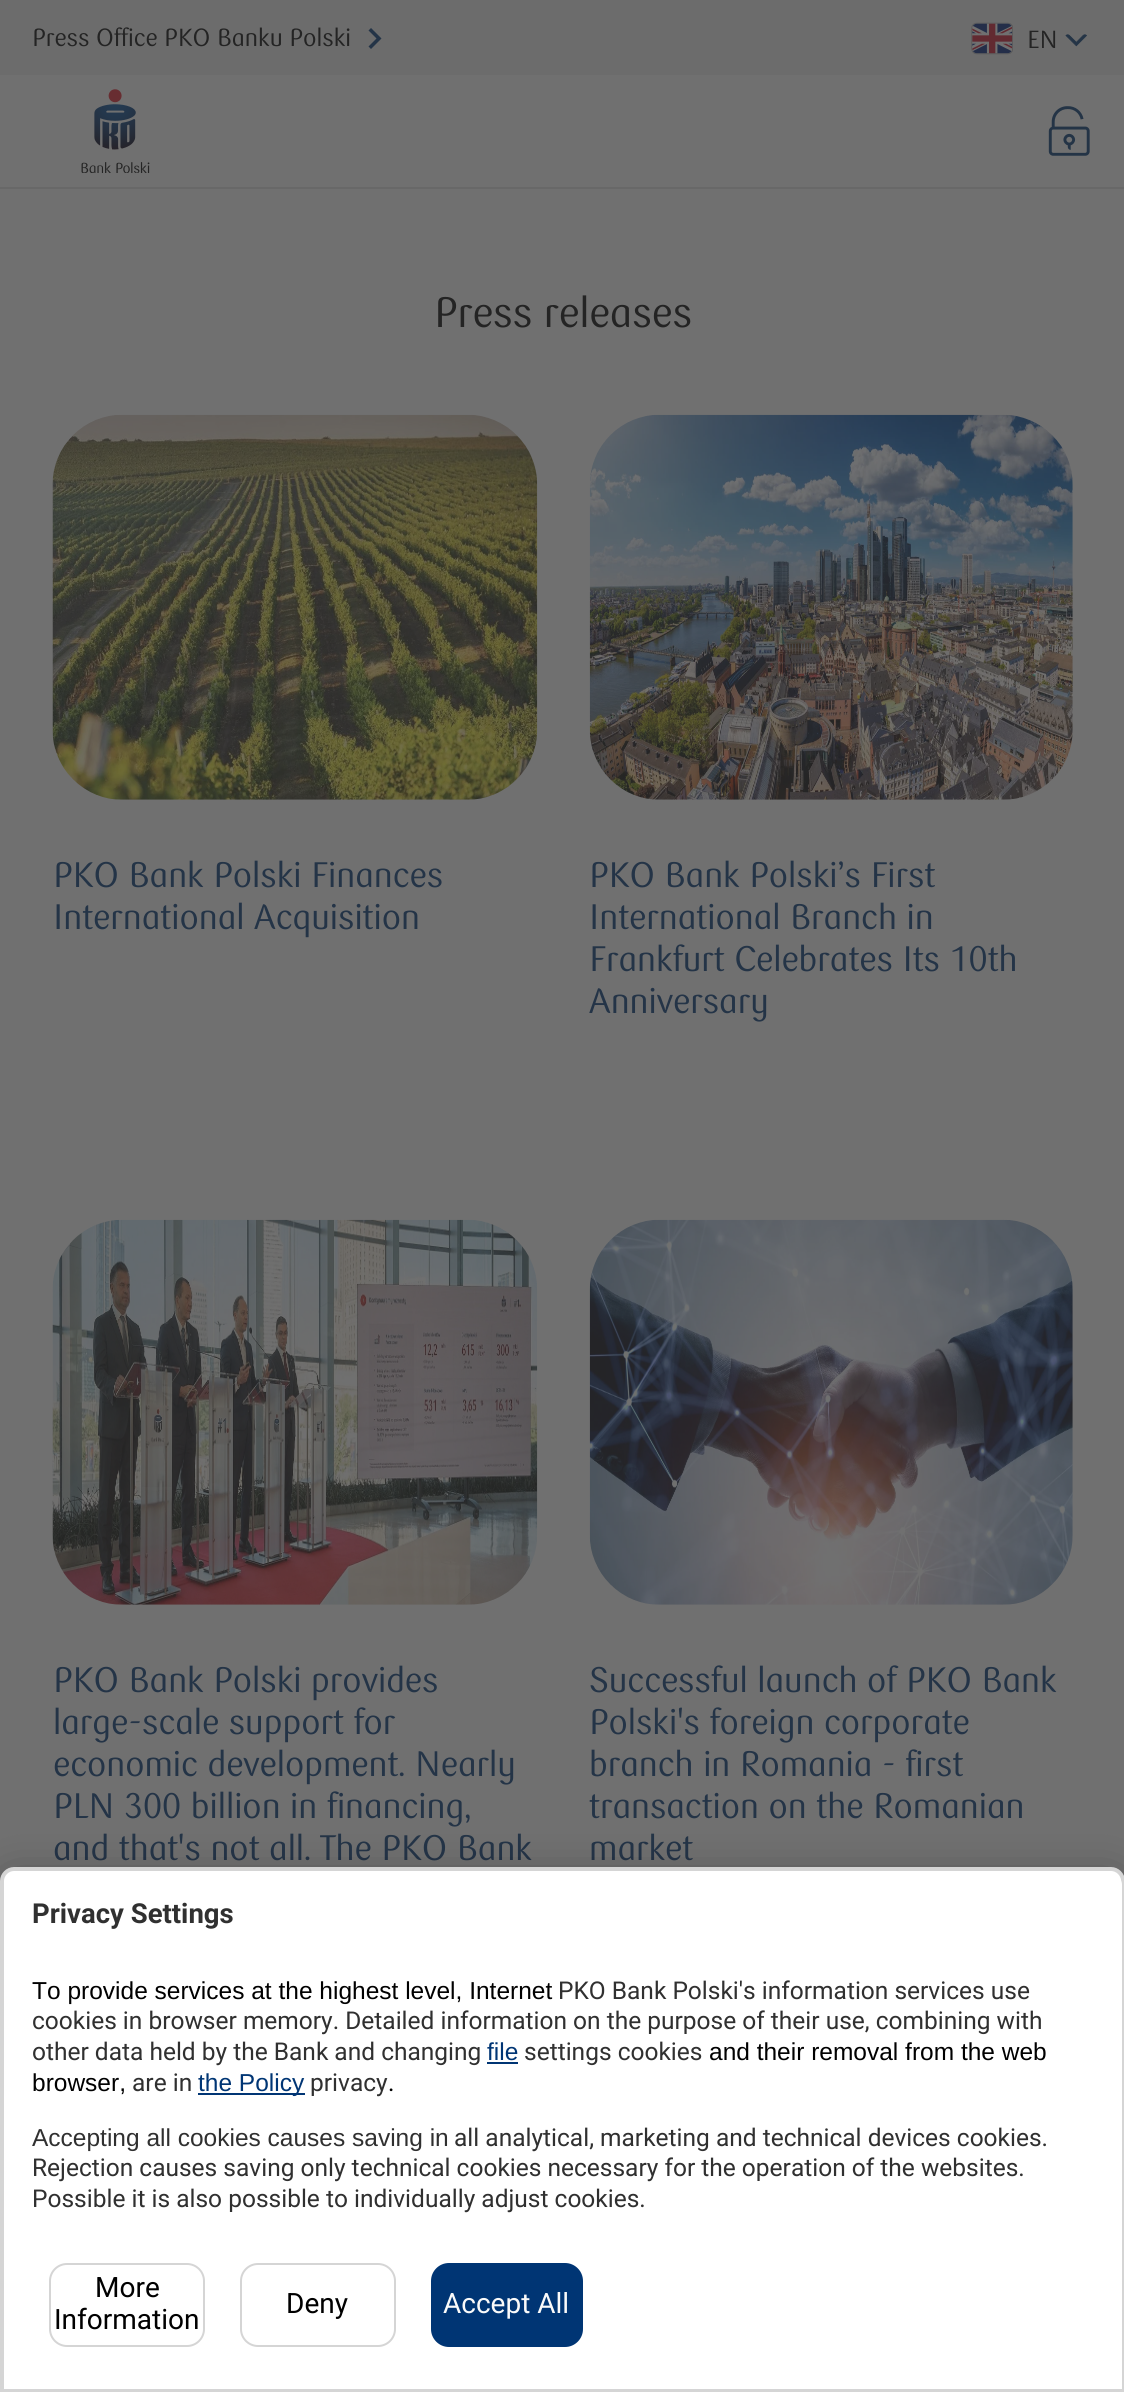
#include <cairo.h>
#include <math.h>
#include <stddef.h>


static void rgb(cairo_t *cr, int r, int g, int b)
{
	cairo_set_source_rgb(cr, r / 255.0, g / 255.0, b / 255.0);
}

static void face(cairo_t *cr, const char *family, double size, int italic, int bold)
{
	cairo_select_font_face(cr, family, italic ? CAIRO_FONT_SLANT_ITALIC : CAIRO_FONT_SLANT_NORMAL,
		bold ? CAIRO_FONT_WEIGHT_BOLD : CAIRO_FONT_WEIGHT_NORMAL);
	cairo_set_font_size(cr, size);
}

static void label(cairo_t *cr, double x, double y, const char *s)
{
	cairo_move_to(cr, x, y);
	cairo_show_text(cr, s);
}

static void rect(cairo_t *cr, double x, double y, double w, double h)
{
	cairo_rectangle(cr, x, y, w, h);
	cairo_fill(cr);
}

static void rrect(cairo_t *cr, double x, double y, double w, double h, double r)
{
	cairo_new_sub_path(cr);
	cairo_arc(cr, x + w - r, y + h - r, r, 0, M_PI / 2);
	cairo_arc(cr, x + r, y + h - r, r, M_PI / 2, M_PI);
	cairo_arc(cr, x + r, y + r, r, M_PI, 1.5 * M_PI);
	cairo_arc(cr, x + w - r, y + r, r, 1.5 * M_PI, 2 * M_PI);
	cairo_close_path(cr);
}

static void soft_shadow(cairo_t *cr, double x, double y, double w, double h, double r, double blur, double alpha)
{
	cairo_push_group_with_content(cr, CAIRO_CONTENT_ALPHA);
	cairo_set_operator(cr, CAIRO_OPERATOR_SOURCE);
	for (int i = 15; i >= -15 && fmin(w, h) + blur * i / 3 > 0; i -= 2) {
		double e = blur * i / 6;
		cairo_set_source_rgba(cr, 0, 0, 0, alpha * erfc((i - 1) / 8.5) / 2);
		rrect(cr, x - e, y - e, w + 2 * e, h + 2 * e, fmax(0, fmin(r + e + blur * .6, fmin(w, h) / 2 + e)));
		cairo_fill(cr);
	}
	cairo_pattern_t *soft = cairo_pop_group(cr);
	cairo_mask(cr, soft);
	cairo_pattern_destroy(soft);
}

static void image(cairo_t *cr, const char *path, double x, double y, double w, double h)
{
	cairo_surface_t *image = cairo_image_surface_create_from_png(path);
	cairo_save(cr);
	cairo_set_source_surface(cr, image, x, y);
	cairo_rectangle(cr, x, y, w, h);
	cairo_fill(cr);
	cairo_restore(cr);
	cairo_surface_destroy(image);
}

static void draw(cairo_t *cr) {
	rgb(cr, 112, 112, 112);
	cairo_paint(cr);
	rgb(cr, 108, 108, 108);
	rect(cr, 0, 0, 1124, 75);
	face(cr, "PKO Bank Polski", 24.5, 0, 0);
	rgb(cr, 36, 36, 36);
	label(cr, 32, 46, "Press Office PKO Banku Polski");
	rgb(cr, 36, 52, 71);
	cairo_new_path(cr);
	cairo_move_to(cr, 368.5, 46.5);
	cairo_line_to(cr, 376.5, 38.5);
	cairo_line_to(cr, 368.5, 30.5);
	cairo_line_to(cr, 371, 28);
	cairo_line_to(cr, 381.5, 38.5);
	cairo_line_to(cr, 371, 49);
	cairo_close_path(cr);
	cairo_fill(cr);
	image(cr, "image0.png", 971, 22, 42, 33);
	rgb(cr, 36, 36, 36);
	label(cr, 1027, 48, "EN");
	image(cr, "image1.png", 1065, 34, 22, 13);
	rgb(cr, 104, 104, 104);
	rect(cr, 0, 187, 1124, 2);
	image(cr, "image2.png", 81, 89, 69, 84);
	image(cr, "image3.png", 1048, 106, 42, 50);
	face(cr, "PKO Bank Polski", 42, 0, 0);
	rgb(cr, 36, 36, 36);
	label(cr, 434, 327, "Press releases");
	image(cr, "image4.png", 52, 414, 486, 386);
	face(cr, "PKO Bank Polski", 35, 0, 0);
	rgb(cr, 36, 52, 71);
	label(cr, 53, 887, "PKO Bank Polski Finances");
	label(cr, 53, 929, "International Acquisition");
	image(cr, "image5.png", 589, 414, 484, 386);
	label(cr, 589, 887, "PKO Bank Polski’s First");
	label(cr, 589, 929, "International Branch in");
	label(cr, 589, 971, "Frankfurt Celebrates Its 10th");
	label(cr, 589, 1013, "Anniversary");
	image(cr, "image6.png", 52, 1219, 486, 386);
	label(cr, 53, 1692, "PKO Bank Polski provides");
	label(cr, 53, 1734, "large-scale support for");
	label(cr, 53, 1776, "economic development. Nearly");
	label(cr, 53, 1818, "PLN 300 billion in financing,");
	label(cr, 53, 1860, "and that's not all. The PKO Bank");
	image(cr, "image7.png", 589, 1219, 484, 386);
	label(cr, 589, 1692, "Successful launch of PKO Bank");
	label(cr, 589, 1734, "Polski's foreign corporate");
	label(cr, 589, 1776, "branch in Romania - first");
	label(cr, 589, 1818, "transaction on the Romanian");
	label(cr, 589, 1860, "market");
	rgb(cr, 0, 0, 0);
	soft_shadow(cr, 0, 1902, 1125, 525, 14, 24.5, 0.3);
	soft_shadow(cr, 0, 1876, 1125, 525, 14, 23, 0.22);
	rgb(cr, 255, 255, 255);
	cairo_new_path(cr);
	cairo_move_to(cr, 14, 1869);
	cairo_line_to(cr, 1111, 1869);
	cairo_curve_to(cr, 1117.5, 1869, 1123, 1874.5, 1123, 1881);
	cairo_line_to(cr, 1123, 2390);
	cairo_line_to(cr, 2, 2390);
	cairo_line_to(cr, 2, 1881);
	cairo_curve_to(cr, 2, 1874.5, 7.5, 1869, 14, 1869);
	cairo_close_path(cr);
	cairo_fill_preserve(cr);
	rgb(cr, 213, 213, 213);
	cairo_set_line_width(cr, 4);
	cairo_stroke(cr);
	rgb(cr, 255, 255, 255);
	cairo_new_path(cr);
	cairo_move_to(cr, 18, 1871);
	cairo_line_to(cr, 1108, 1871);
	cairo_curve_to(cr, 1115.5, 1871, 1122, 1877.5, 1122, 1885);
	cairo_line_to(cr, 1122, 2249);
	cairo_line_to(cr, 4, 2249);
	cairo_line_to(cr, 4, 1885);
	cairo_curve_to(cr, 4, 1877.5, 10.5, 1871, 18, 1871);
	cairo_close_path(cr);
	cairo_fill(cr);
	face(cr, "Roboto", 27.5, 0, 1);
	rgb(cr, 48, 48, 48);
	label(cr, 32, 1923, "Privacy Settings");
	face(cr, "Liberation Sans", 24.5, 0, 0);
	rgb(cr, 0, 0, 0);
	label(cr, 32, 1999, "To provide services at the highest level, Internet");
	face(cr, "Roboto", 24.5, 0, 0);
	rgb(cr, 48, 48, 48);
	label(cr, 558, 1999, "PKO Bank Polski's information services use");
	label(cr, 32, 2029, "cookies in browser memory. Detailed information on the purpose of their use, combining with");
	label(cr, 32, 2060, "other data held by the Bank and changing");
	face(cr, "Liberation Sans", 24.5, 0, 0);
	rgb(cr, 0, 53, 116);
	label(cr, 487, 2060, "file");
	rect(cr, 487, 2062, 31, 2);
	face(cr, "Roboto", 24.5, 0, 0);
	rgb(cr, 48, 48, 48);
	label(cr, 524, 2060, "settings cookies");
	face(cr, "Liberation Sans", 24.5, 0, 0);
	rgb(cr, 0, 0, 0);
	label(cr, 709, 2060, "and their removal from the web");
	label(cr, 32, 2091, "browser,");
	face(cr, "Roboto", 24.5, 0, 0);
	rgb(cr, 48, 48, 48);
	label(cr, 132, 2091, "are in");
	rgb(cr, 0, 53, 116);
	rect(cr, 198, 2093, 107, 2);
	face(cr, "Liberation Sans", 24.5, 0, 0);
	label(cr, 198, 2091, "the Policy");
	face(cr, "Roboto", 24.5, 0, 0);
	rgb(cr, 48, 48, 48);
	label(cr, 310, 2091, "privacy");
	rgb(cr, 0, 0, 0);
	label(cr, 388, 2091, ".");
	face(cr, "Liberation Sans", 24.5, 0, 0);
	rgb(cr, 48, 48, 48);
	label(cr, 32, 2146, "Accepting all cookies causes saving in");
	face(cr, "Roboto", 24.5, 0, 0);
	label(cr, 454, 2146, "all analytical, marketing and technical devices cookies.");
	label(cr, 32, 2176, "Rejection causes saving only technical cookies necessary for the operation of the websites.");
	label(cr, 32, 2207, "Possible it is also possible to individually adjust cookies.");
	rgb(cr, 255, 255, 255);
	rect(cr, 4, 2249, 1118, 140);
	rrect(cr, 50, 2264, 154, 82, 17);
	rgb(cr, 213, 213, 213);
	cairo_set_line_width(cr, 2);
	cairo_stroke(cr);
	face(cr, "Roboto", 28, 0, 0);
	rgb(cr, 0, 0, 0);
	label(cr, 95, 2297, "More");
	label(cr, 54, 2329, "Information");
	rrect(cr, 241, 2264, 154, 82, 17);
	rgb(cr, 213, 213, 213);
	cairo_stroke(cr);
	rgb(cr, 0, 0, 0);
	label(cr, 286, 2313, "Deny");
	rgb(cr, 0, 53, 116);
	rrect(cr, 431, 2263, 152, 84, 18);
	cairo_fill(cr);
	rgb(cr, 250, 250, 250);
	label(cr, 443, 2313, "Accept All");
}

int main(void) {
	cairo_surface_t *surface = cairo_image_surface_create(CAIRO_FORMAT_RGB24, 1124, 2392);
	cairo_t *cr = cairo_create(surface);
	cairo_font_options_t *options = cairo_font_options_create();
	cairo_font_options_set_hint_metrics(options, CAIRO_HINT_METRICS_OFF);
	cairo_font_options_set_hint_style(options, CAIRO_HINT_STYLE_NONE);
	cairo_set_font_options(cr, options);
	cairo_set_miter_limit(cr, 4);
	draw(cr);
	cairo_surface_write_to_png(surface, "render.png");
	cairo_font_options_destroy(options);
	cairo_destroy(cr);
	cairo_surface_destroy(surface);
	return 0;
}
